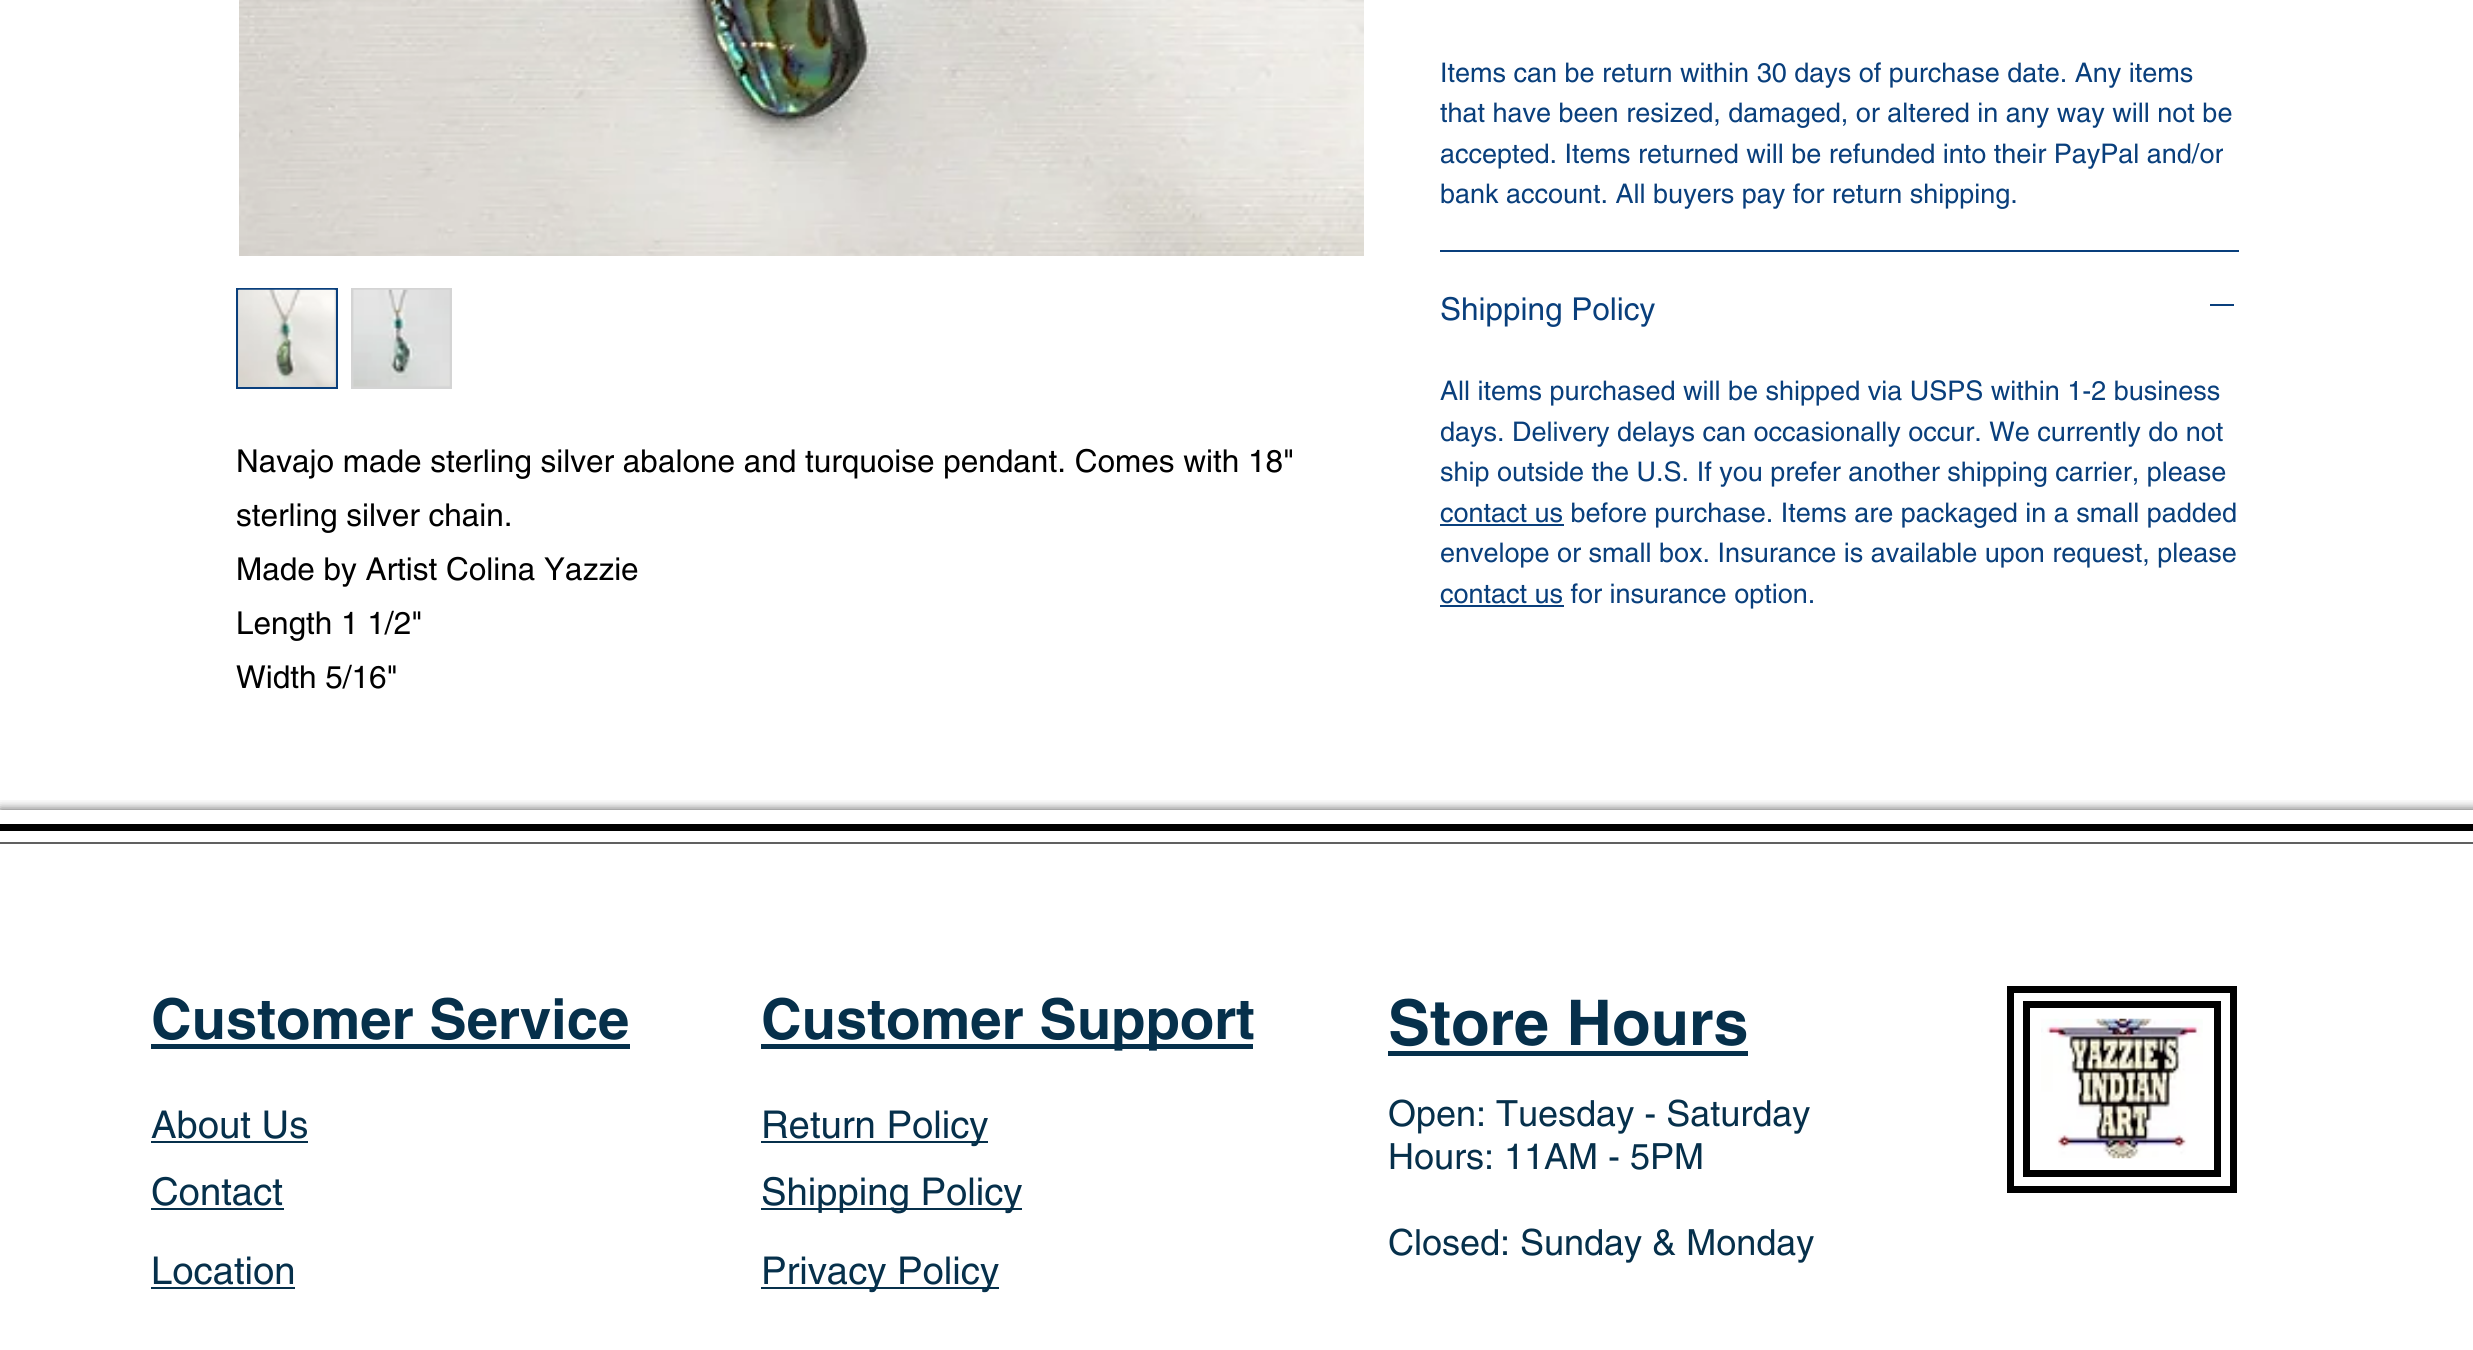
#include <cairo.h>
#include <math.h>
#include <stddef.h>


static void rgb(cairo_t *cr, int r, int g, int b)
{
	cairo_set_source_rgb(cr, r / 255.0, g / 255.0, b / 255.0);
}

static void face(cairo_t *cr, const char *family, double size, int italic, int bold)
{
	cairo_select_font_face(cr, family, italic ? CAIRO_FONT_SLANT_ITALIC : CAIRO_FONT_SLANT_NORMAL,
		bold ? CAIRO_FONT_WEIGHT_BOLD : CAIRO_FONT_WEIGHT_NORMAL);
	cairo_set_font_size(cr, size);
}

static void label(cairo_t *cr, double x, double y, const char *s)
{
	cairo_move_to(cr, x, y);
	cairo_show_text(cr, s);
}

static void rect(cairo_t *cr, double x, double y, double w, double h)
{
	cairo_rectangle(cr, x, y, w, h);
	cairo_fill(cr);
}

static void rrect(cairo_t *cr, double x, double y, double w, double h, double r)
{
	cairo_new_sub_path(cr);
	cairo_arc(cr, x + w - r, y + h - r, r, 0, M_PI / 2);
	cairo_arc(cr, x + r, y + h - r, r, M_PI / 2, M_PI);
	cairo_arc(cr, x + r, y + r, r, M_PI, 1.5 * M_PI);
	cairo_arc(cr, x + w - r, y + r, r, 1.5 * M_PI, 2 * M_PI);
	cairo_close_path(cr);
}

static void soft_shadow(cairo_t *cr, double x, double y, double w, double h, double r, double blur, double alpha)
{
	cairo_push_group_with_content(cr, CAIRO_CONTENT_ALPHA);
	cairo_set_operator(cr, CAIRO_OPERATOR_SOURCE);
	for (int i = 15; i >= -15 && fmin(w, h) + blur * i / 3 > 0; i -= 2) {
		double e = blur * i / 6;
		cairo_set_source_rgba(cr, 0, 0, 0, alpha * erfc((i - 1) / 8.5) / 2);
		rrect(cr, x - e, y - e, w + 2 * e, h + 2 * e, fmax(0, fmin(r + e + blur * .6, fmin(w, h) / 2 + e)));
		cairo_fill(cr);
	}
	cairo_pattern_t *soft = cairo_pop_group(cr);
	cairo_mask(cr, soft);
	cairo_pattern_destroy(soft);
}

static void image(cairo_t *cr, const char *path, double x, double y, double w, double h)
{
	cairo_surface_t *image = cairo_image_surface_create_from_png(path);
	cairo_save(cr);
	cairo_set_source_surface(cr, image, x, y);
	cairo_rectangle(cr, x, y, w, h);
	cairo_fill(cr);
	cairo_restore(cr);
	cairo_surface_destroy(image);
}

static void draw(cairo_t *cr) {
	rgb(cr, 255, 255, 255);
	cairo_paint(cr);
	image(cr, "image0.png", 239, 0, 1125, 256);
	rgb(cr, 212, 212, 212);
	cairo_rectangle(cr, 237, 289, 100, 99);
	cairo_fill_preserve(cr);
	rgb(cr, 9, 63, 124);
	cairo_stroke(cr);
	image(cr, "image1.png", 238, 289, 98, 98);
	rgb(cr, 212, 212, 212);
	rect(cr, 351, 288, 101, 101);
	image(cr, "image2.png", 353, 289, 97, 98);
	face(cr, "helvetica", 31.5, 0, 0);
	rgb(cr, 0, 0, 0);
	label(cr, 236, 472, "Navajo made sterling silver abalone and turquoise pendant. Comes with 18\"");
	label(cr, 236, 526, "sterling silver chain.");
	label(cr, 236, 580, "Made by Artist Colina Yazzie");
	label(cr, 236, 634, "Length 1 1/2\"");
	label(cr, 236, 688, "Width 5/16\"");
	rgb(cr, 9, 63, 124);
	rect(cr, 1440, 250, 799, 2);
	face(cr, "helvetica", 27, 0, 0);
	label(cr, 1440, 82, "Items can be return within 30 days of purchase date. Any items");
	label(cr, 1440, 122, "that have been resized, damaged, or altered in any way will not be");
	label(cr, 1440, 163, "accepted. Items returned will be refunded into their PayPal and/or");
	label(cr, 1440, 203, "bank account. All buyers pay for return shipping.");
	face(cr, "helvetica", 31.5, 0, 0);
	label(cr, 1440, 320, "Shipping Policy");
	rect(cr, 2210, 304, 24, 2);
	face(cr, "helvetica", 27, 0, 0);
	label(cr, 1440, 400, "All items purchased will be shipped via USPS within 1-2 business");
	label(cr, 1440, 441, "days. Delivery delays can occasionally occur. We currently do not");
	label(cr, 1440, 481, "ship outside the U.S. If you prefer another shipping carrier, please");
	rect(cr, 1440, 524, 124, 2);
	label(cr, 1440, 522, "contact us before purchase. Items are packaged in a small padded");
	label(cr, 1440, 562, "envelope or small box. Insurance is available upon request, please");
	rect(cr, 1440, 605, 124, 2);
	label(cr, 1440, 603, "contact us for insurance option.");
	cairo_save(cr);
	cairo_rectangle(cr, 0, 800, 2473, 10);
	cairo_clip(cr);
	rgb(cr, 0, 0, 0);
	soft_shadow(cr, 0, 810, 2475, 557, 0, 5.5, 0.7);
	cairo_restore(cr);
	rgb(cr, 0, 0, 0);
	rect(cr, 0, 824, 2473, 7);
	rgb(cr, 96, 96, 96);
	rect(cr, 0, 842, 2473, 2);
	face(cr, "helvetica", 56.25, 0, 1);
	rgb(cr, 6, 48, 75);
	label(cr, 151, 1039, "Customer Service");
	rect(cr, 151, 1044, 479, 5);
	rect(cr, 761, 1044, 492, 5);
	label(cr, 761, 1039, "Customer Support");
	face(cr, "helvetica", 63, 0, 1);
	label(cr, 1388, 1045, "Store Hours");
	rect(cr, 1388, 1051, 360, 5);
	face(cr, "helvetica", 36, 0, 0);
	label(cr, 1388, 1126, "Open: Tuesday - Saturday");
	label(cr, 1388, 1169, "Hours: 11AM - 5PM");
	label(cr, 1388, 1255, "Closed: Sunday & Monday");
	cairo_rectangle(cr, 2010.5, 989.5, 223, 200);
	rgb(cr, 0, 0, 0);
	cairo_set_line_width(cr, 7);
	cairo_stroke(cr);
	image(cr, "image3.png", 2041, 1018, 162, 141);
	cairo_rectangle(cr, 2026.5, 1004.5, 191, 169);
	cairo_stroke(cr);
	face(cr, "helvetica", 38.25, 0, 0);
	rgb(cr, 6, 48, 75);
	label(cr, 151, 1138, "About Us");
	rect(cr, 151, 1141, 157, 2);
	label(cr, 151, 1205, "Contact");
	rect(cr, 151, 1208, 133, 2);
	label(cr, 151, 1284, "Location");
	rect(cr, 151, 1287, 144, 2);
	rect(cr, 761, 1141, 227, 2);
	label(cr, 761, 1138, "Return Policy");
	rect(cr, 761, 1208, 261, 2);
	label(cr, 761, 1205, "Shipping Policy");
	rect(cr, 761, 1287, 238, 2);
	label(cr, 761, 1284, "Privacy Policy");
}

int main(void) {
	cairo_surface_t *surface = cairo_image_surface_create(CAIRO_FORMAT_RGB24, 2473, 1350);
	cairo_t *cr = cairo_create(surface);
	cairo_font_options_t *options = cairo_font_options_create();
	cairo_font_options_set_hint_metrics(options, CAIRO_HINT_METRICS_OFF);
	cairo_font_options_set_hint_style(options, CAIRO_HINT_STYLE_NONE);
	cairo_set_font_options(cr, options);
	cairo_set_miter_limit(cr, 4);
	draw(cr);
	cairo_surface_write_to_png(surface, "render.png");
	cairo_font_options_destroy(options);
	cairo_destroy(cr);
	cairo_surface_destroy(surface);
	return 0;
}
